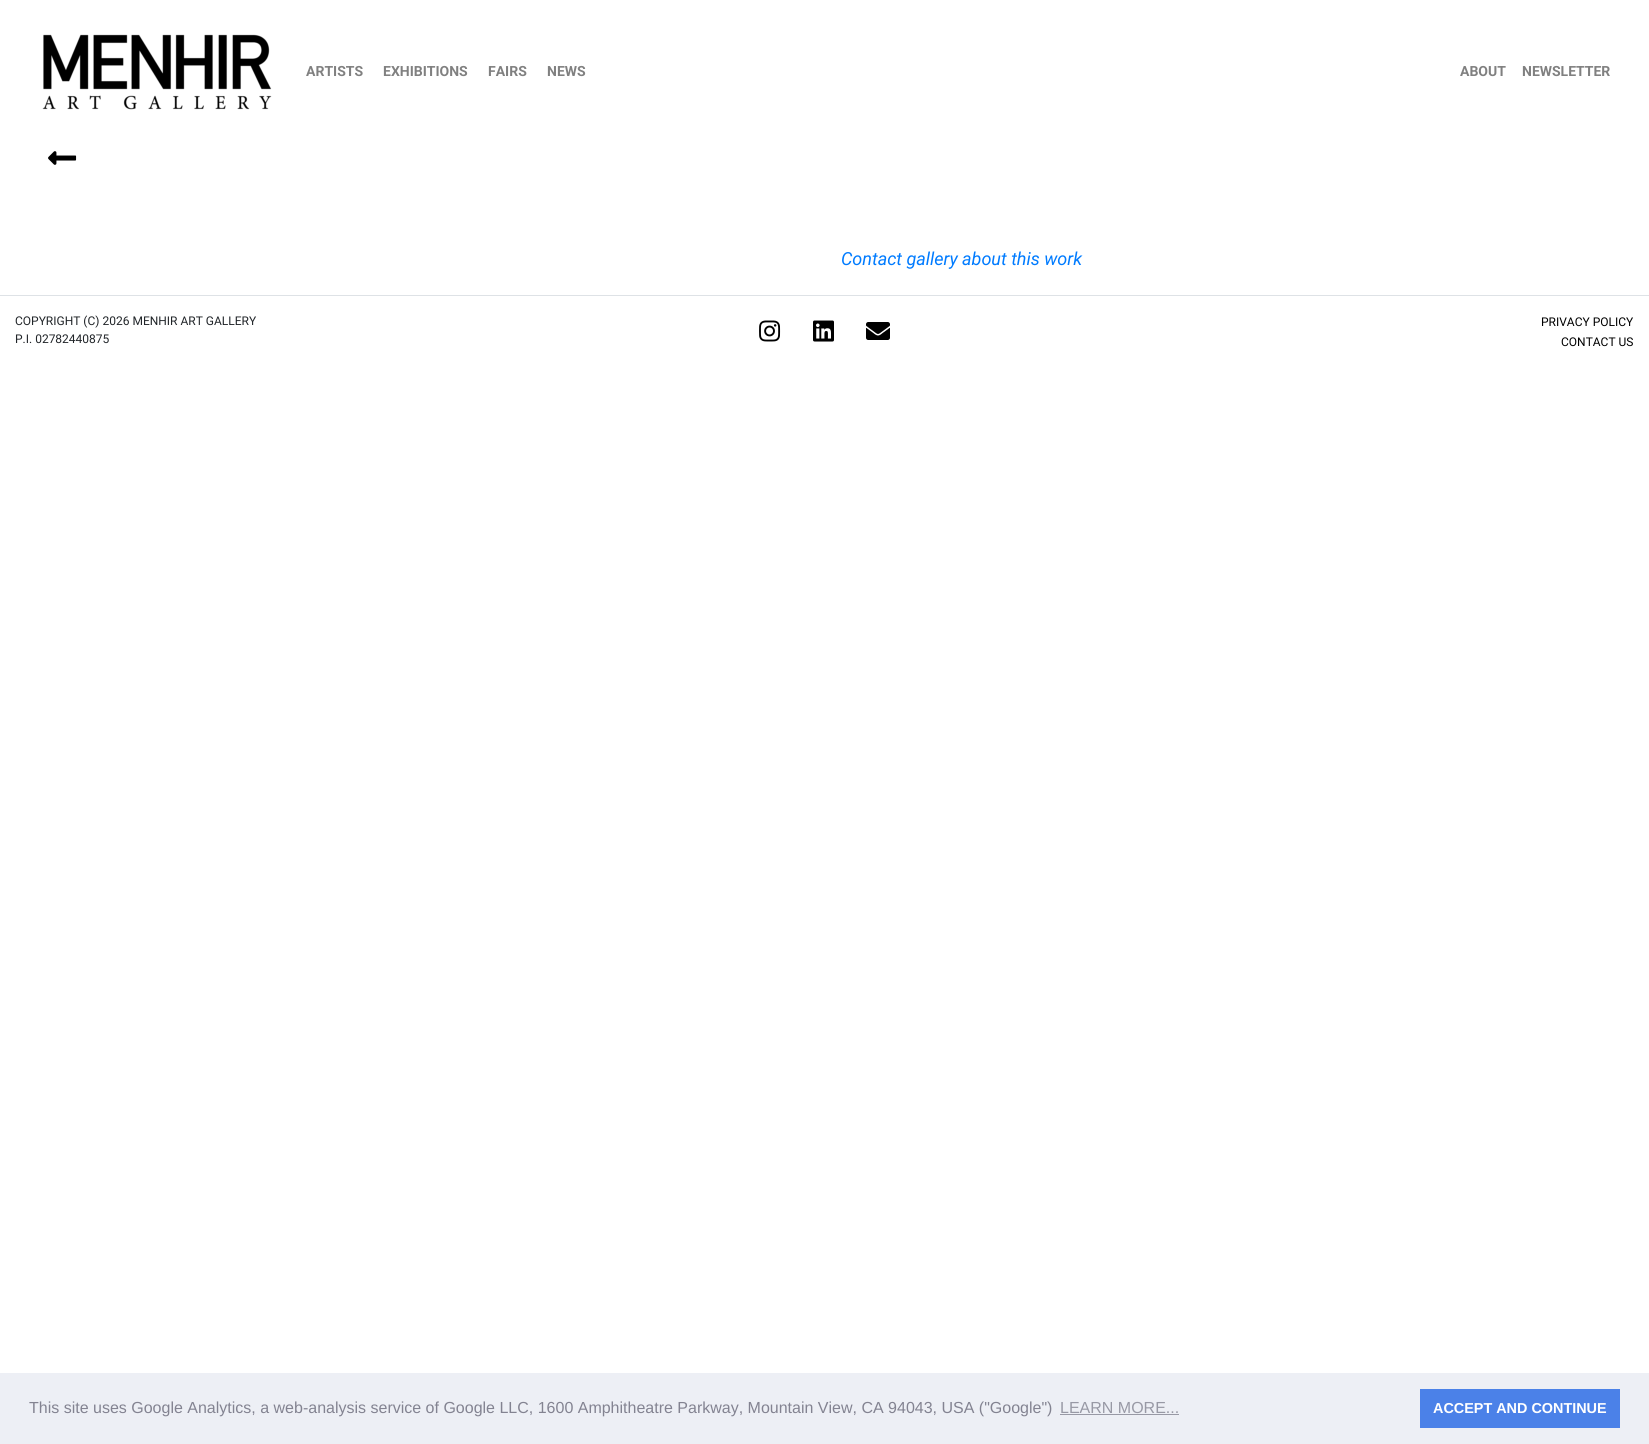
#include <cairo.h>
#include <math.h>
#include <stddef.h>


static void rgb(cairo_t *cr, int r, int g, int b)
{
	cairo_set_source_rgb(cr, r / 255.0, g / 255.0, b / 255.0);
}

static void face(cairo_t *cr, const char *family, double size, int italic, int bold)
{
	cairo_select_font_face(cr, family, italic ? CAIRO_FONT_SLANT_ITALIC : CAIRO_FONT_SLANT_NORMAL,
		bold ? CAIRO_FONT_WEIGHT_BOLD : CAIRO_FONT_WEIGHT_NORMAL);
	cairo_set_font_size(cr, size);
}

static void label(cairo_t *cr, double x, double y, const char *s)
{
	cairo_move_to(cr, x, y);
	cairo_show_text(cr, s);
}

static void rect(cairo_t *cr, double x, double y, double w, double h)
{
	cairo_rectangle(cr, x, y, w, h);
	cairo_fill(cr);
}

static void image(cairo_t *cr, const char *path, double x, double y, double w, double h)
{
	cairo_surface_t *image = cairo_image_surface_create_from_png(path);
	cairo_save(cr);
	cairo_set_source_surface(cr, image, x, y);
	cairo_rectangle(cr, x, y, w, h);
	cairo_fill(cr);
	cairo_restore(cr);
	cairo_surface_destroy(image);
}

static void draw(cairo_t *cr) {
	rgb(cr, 255, 255, 255);
	cairo_paint(cr);
	image(cr, "image0.png", 42, 34, 230, 76);
	face(cr, "Roboto", 14, 0, 1);
	rgb(cr, 128, 128, 128);
	label(cr, 306, 76, "ARTISTS");
	label(cr, 383, 76, "EXHIBITIONS");
	label(cr, 488, 76, "FAIRS");
	label(cr, 547, 76, "NEWS");
	label(cr, 1460, 76, "ABOUT");
	label(cr, 1522, 76, "NEWSLETTER");
	image(cr, "image1.png", 48, 151, 29, 14);
	face(cr, "Roboto", 18, 1, 0);
	rgb(cr, 0, 123, 255);
	label(cr, 841, 265, "Contact gallery about this work");
	rgb(cr, 222, 226, 230);
	rect(cr, 0, 295, 1649, 1);
	face(cr, "Roboto", 12, 0, 0);
	rgb(cr, 33, 37, 41);
	label(cr, 15, 325, "COPYRIGHT (C) 2026 MENHIR ART GALLERY");
	label(cr, 15, 343, "P.I. 02782440875");
	image(cr, "image2.png", 759, 320, 22, 22);
	image(cr, "image3.png", 813, 320, 21, 22);
	image(cr, "image4.png", 866, 322, 24, 18);
	rgb(cr, 0, 0, 0);
	label(cr, 1541, 326, "PRIVACY POLICY");
	label(cr, 1561, 346, "CONTACT US");
	rgb(cr, 237, 239, 245);
	rect(cr, 0, 1373, 1649, 71);
	face(cr, "Liberation Sans", 16, 0, 0);
	rgb(cr, 131, 131, 145);
	label(cr, 29, 1413, "This site uses Google Analytics, a web-analysis service of Google LLC, 1600 Amphitheatre Parkway, Mountain View, CA 94043, USA (\"Google\")");
	rgb(cr, 152, 153, 165);
	label(cr, 1060, 1413, "LEARN MORE...");
	rect(cr, 1060, 1414, 119, 1);
	rgb(cr, 75, 129, 232);
	rect(cr, 1420, 1389, 200, 39);
	face(cr, "Liberation Sans", 14.4, 0, 1);
	rgb(cr, 255, 255, 255);
	label(cr, 1433, 1413, "ACCEPT AND CONTINUE");
}

int main(void) {
	cairo_surface_t *surface = cairo_image_surface_create(CAIRO_FORMAT_RGB24, 1649, 1444);
	cairo_t *cr = cairo_create(surface);
	cairo_font_options_t *options = cairo_font_options_create();
	cairo_font_options_set_hint_metrics(options, CAIRO_HINT_METRICS_OFF);
	cairo_font_options_set_hint_style(options, CAIRO_HINT_STYLE_NONE);
	cairo_set_font_options(cr, options);
	cairo_set_miter_limit(cr, 4);
	draw(cr);
	cairo_surface_write_to_png(surface, "render.png");
	cairo_font_options_destroy(options);
	cairo_destroy(cr);
	cairo_surface_destroy(surface);
	return 0;
}
